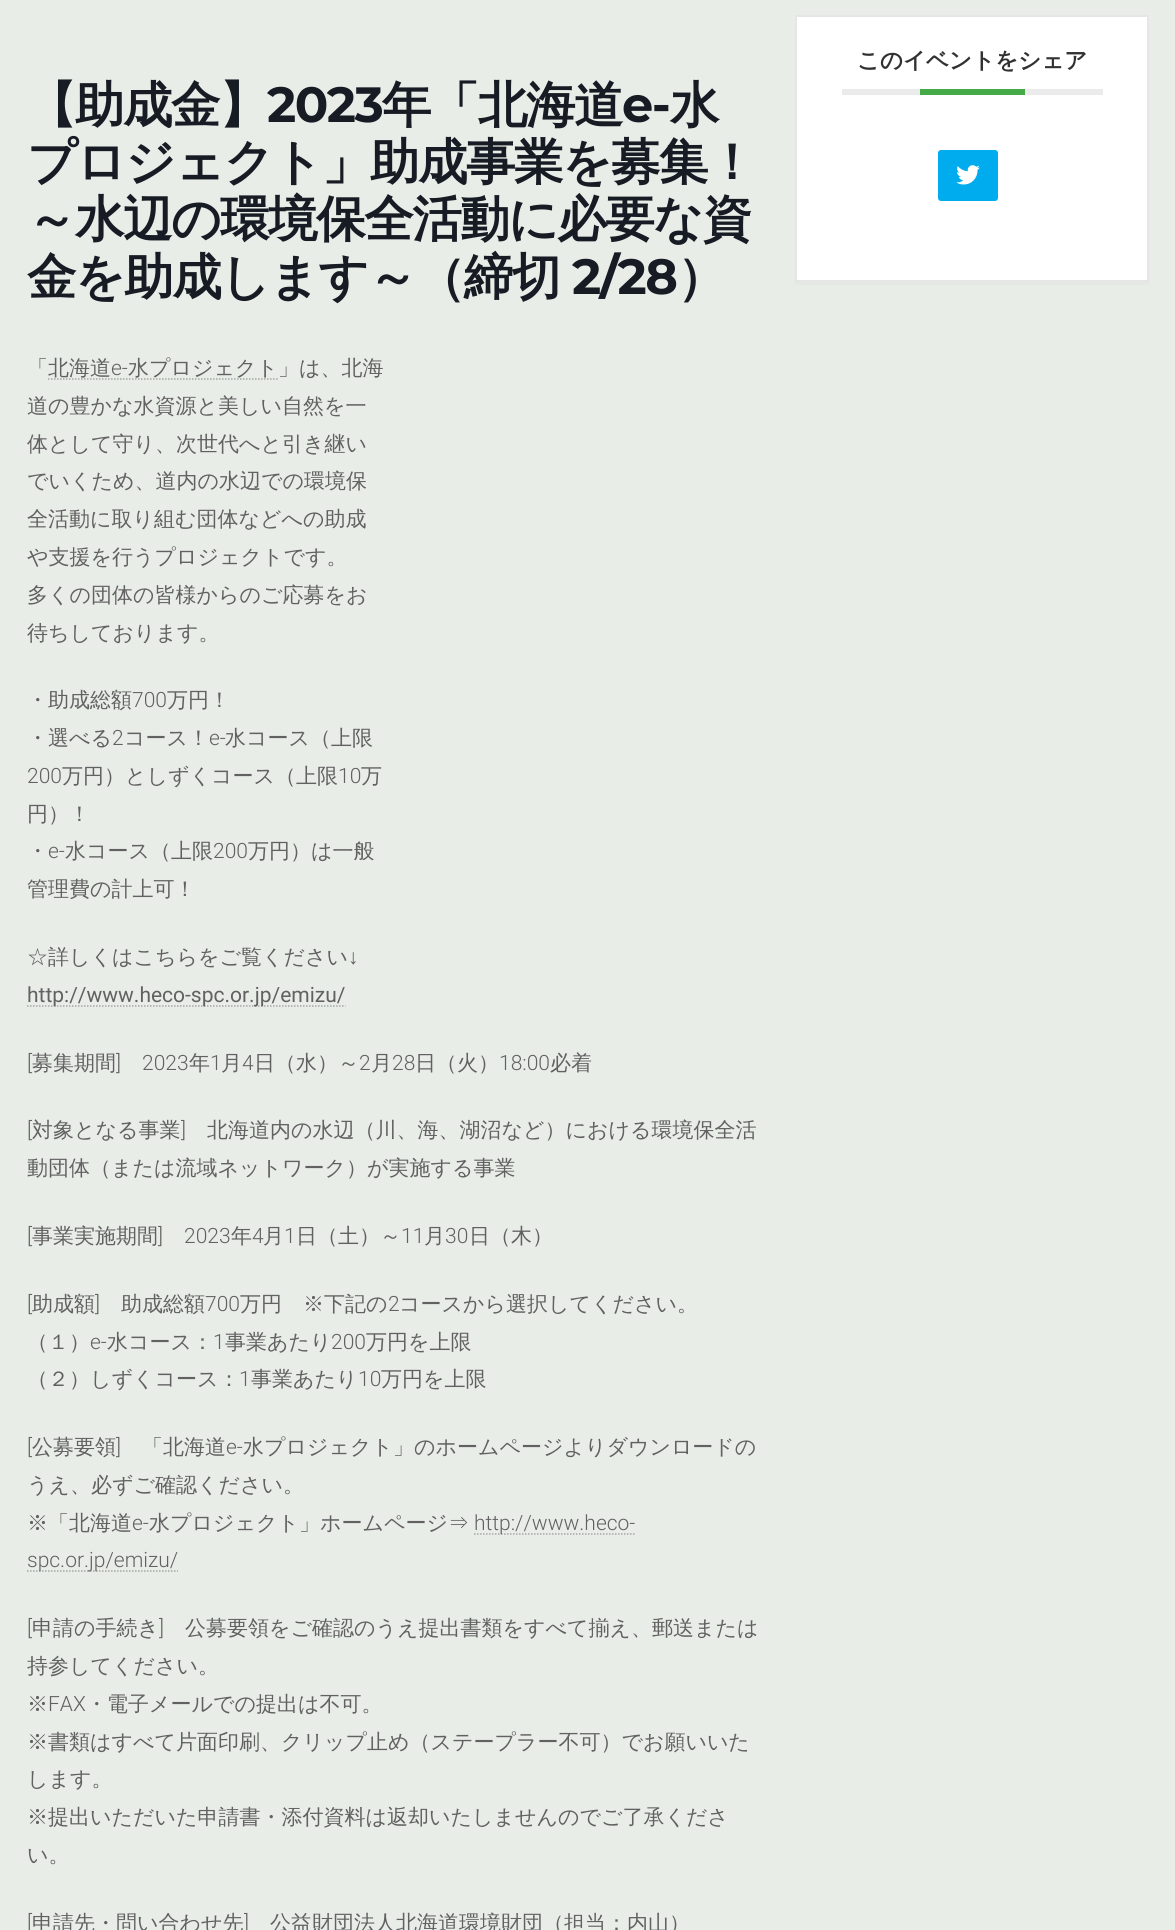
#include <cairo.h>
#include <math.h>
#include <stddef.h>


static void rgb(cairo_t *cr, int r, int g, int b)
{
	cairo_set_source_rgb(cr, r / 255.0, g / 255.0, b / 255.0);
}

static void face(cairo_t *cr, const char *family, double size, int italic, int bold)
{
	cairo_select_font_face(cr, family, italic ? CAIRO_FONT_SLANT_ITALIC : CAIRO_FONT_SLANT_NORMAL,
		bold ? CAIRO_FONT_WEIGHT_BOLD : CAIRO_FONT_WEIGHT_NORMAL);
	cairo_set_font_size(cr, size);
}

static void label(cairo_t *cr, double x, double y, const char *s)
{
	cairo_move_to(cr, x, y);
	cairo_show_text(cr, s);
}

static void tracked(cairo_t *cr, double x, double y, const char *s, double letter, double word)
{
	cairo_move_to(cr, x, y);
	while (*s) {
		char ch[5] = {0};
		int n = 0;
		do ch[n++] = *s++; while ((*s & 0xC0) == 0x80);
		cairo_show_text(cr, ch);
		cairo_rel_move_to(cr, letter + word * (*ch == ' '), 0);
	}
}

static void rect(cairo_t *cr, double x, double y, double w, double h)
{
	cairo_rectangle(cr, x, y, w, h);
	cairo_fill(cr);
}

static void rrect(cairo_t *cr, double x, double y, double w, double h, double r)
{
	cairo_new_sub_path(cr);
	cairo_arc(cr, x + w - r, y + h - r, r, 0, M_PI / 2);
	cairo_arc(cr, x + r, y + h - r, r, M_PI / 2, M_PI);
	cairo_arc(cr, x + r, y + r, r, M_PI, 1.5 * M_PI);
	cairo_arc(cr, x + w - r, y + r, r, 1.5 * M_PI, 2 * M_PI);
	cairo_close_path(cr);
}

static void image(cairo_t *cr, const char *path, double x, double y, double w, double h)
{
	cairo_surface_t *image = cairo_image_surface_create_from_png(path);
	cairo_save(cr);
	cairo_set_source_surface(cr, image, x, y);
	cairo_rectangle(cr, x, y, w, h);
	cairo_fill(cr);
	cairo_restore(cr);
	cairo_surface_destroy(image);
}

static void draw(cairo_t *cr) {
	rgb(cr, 233, 237, 232);
	cairo_paint(cr);
	rgb(cr, 229, 233, 228);
	rect(cr, 795, 282, 354, 3);
	rgb(cr, 255, 255, 255);
	cairo_rectangle(cr, 796, 16, 352, 265);
	cairo_fill_preserve(cr);
	rgb(cr, 230, 230, 230);
	cairo_stroke(cr);
	rgb(cr, 235, 235, 235);
	rect(cr, 842, 89, 261, 6);
	face(cr, "WenQuanYi Zen Hei", 22.5, 0, 1);
	rgb(cr, 49, 49, 49);
	label(cr, 857, 68, "このイベントをシェア");
	rgb(cr, 69, 171, 72);
	rect(cr, 920, 89, 105, 6);
	rgb(cr, 0, 172, 238);
	rrect(cr, 938, 150, 60, 51, 3);
	cairo_fill(cr);
	image(cr, "image0.png", 956, 165, 24, 20);
	face(cr, "WenQuanYi Zen Hei", 49.5, 0, 1);
	rgb(cr, 23, 28, 36);
	tracked(cr, 27, 122, "【助成金】", -1.5, 0);
	face(cr, "Montserrat", 49.5, 0, 1);
	tracked(cr, 267, 122, "2023", -1.5, 0);
	face(cr, "WenQuanYi Zen Hei", 49.5, 0, 1);
	tracked(cr, 382, 122, "年「北海道", -1.5, 0);
	face(cr, "Montserrat", 49.5, 0, 1);
	tracked(cr, 622, 122, "e-", -1.5, 0);
	face(cr, "WenQuanYi Zen Hei", 49.5, 0, 1);
	tracked(cr, 670, 122, "水", -1.5, 0);
	tracked(cr, 27, 179, "プロジェクト」助成事業を募集！", -1.5, 0);
	tracked(cr, 27, 236, "～水辺の環境保全活動に必要な資", -1.5, 0);
	tracked(cr, 27, 294, "金を助成します～（締切", -1.5, 0);
	face(cr, "Montserrat", 49.5, 0, 1);
	tracked(cr, 572, 294, "2/28", -1.5, 0);
	face(cr, "WenQuanYi Zen Hei", 49.5, 0, 1);
	tracked(cr, 677, 294, "）", -1.5, 0);
	face(cr, "WenQuanYi Zen Hei Medium", 21, 0, 0);
	rgb(cr, 97, 97, 97);
	label(cr, 27, 375, "「");
	label(cr, 48, 375, "北海道");
	face(cr, "Roboto Light", 21, 0, 0);
	label(cr, 111, 375, "e-");
	cairo_new_path(cr);
	cairo_move_to(cr, 48, 379);
	cairo_line_to(cr, 278, 379);
	rgb(cr, 163, 166, 162);
	cairo_set_line_width(cr, 1.5);
	cairo_set_dash(cr, (double[]){1.5, 1.5}, 2, 0);
	cairo_stroke(cr);
	face(cr, "WenQuanYi Zen Hei Medium", 21, 0, 0);
	rgb(cr, 97, 97, 97);
	label(cr, 128, 375, "水プロジェクト");
	label(cr, 278, 375, "」は、北海");
	label(cr, 27, 413, "道の豊かな水資源と美しい自然を一");
	label(cr, 27, 451, "体として守り、次世代へと引き継い");
	label(cr, 27, 488, "でいくため、道内の水辺での環境保");
	label(cr, 27, 526, "全活動に取り組む団体などへの助成");
	label(cr, 27, 564, "や支援を行うプロジェクトです。");
	label(cr, 27, 602, "多くの団体の皆様からのご応募をお");
	label(cr, 27, 640, "待ちしております。");
	label(cr, 27, 707, "・助成総額");
	face(cr, "Roboto Light", 21, 0, 0);
	label(cr, 132, 707, "700");
	face(cr, "WenQuanYi Zen Hei Medium", 21, 0, 0);
	label(cr, 167, 707, "万円！");
	label(cr, 27, 745, "・選べる");
	face(cr, "Roboto Light", 21, 0, 0);
	label(cr, 112, 745, "2");
	face(cr, "WenQuanYi Zen Hei Medium", 21, 0, 0);
	label(cr, 124, 745, "コース！");
	face(cr, "Roboto Light", 21, 0, 0);
	label(cr, 209, 745, "e-");
	face(cr, "WenQuanYi Zen Hei Medium", 21, 0, 0);
	label(cr, 225, 745, "水コース（上限");
	face(cr, "Roboto Light", 21, 0, 0);
	label(cr, 27, 783, "200");
	face(cr, "WenQuanYi Zen Hei Medium", 21, 0, 0);
	label(cr, 62, 783, "万円）としずくコース（上限");
	face(cr, "Roboto Light", 21, 0, 0);
	label(cr, 338, 783, "10");
	face(cr, "WenQuanYi Zen Hei Medium", 21, 0, 0);
	label(cr, 361, 783, "万");
	label(cr, 27, 821, "円）！");
	label(cr, 27, 858, "・");
	face(cr, "Roboto Light", 21, 0, 0);
	label(cr, 48, 858, "e-");
	face(cr, "WenQuanYi Zen Hei Medium", 21, 0, 0);
	label(cr, 65, 858, "水コース（上限");
	face(cr, "Roboto Light", 21, 0, 0);
	label(cr, 213, 858, "200");
	face(cr, "WenQuanYi Zen Hei Medium", 21, 0, 0);
	label(cr, 248, 858, "万円）は一般");
	label(cr, 27, 896, "管理費の計上可！");
	label(cr, 27, 964, "☆詳しくはこちらをご覧ください");
	face(cr, "Liberation Sans", 21, 0, 0);
	label(cr, 348, 964, "↓");
	cairo_new_path(cr);
	cairo_move_to(cr, 27, 1006);
	cairo_line_to(cr, 345.5, 1006);
	rgb(cr, 163, 166, 162);
	cairo_stroke(cr);
	face(cr, "Roboto", 21, 0, 0);
	rgb(cr, 97, 97, 97);
	label(cr, 27, 1002, "http://www.heco-spc.or.jp/emizu/");
	face(cr, "Roboto Light", 21, 0, 0);
	label(cr, 27, 1070, "[");
	face(cr, "WenQuanYi Zen Hei Medium", 21, 0, 0);
	label(cr, 32, 1070, "募集期間");
	face(cr, "Roboto Light", 21, 0, 0);
	label(cr, 116, 1070, "]");
	label(cr, 142, 1070, "2023");
	face(cr, "WenQuanYi Zen Hei Medium", 21, 0, 0);
	label(cr, 189, 1070, "年");
	face(cr, "Roboto Light", 21, 0, 0);
	label(cr, 210, 1070, "1");
	face(cr, "WenQuanYi Zen Hei Medium", 21, 0, 0);
	label(cr, 221, 1070, "月");
	face(cr, "Roboto Light", 21, 0, 0);
	label(cr, 242, 1070, "4");
	face(cr, "WenQuanYi Zen Hei Medium", 21, 0, 0);
	label(cr, 254, 1070, "日（水）～");
	face(cr, "Roboto Light", 21, 0, 0);
	label(cr, 359, 1070, "2");
	face(cr, "WenQuanYi Zen Hei Medium", 21, 0, 0);
	label(cr, 371, 1070, "月");
	face(cr, "Roboto Light", 21, 0, 0);
	label(cr, 392, 1070, "28");
	face(cr, "WenQuanYi Zen Hei Medium", 21, 0, 0);
	label(cr, 415, 1070, "日（火）");
	face(cr, "Roboto Light", 21, 0, 0);
	label(cr, 499, 1070, "18:00");
	face(cr, "WenQuanYi Zen Hei Medium", 21, 0, 0);
	label(cr, 550, 1070, "必着");
	face(cr, "Roboto Light", 21, 0, 0);
	label(cr, 27, 1137, "[");
	face(cr, "WenQuanYi Zen Hei Medium", 21, 0, 0);
	label(cr, 32, 1137, "対象となる事業");
	face(cr, "Roboto Light", 21, 0, 0);
	label(cr, 181, 1137, "]");
	face(cr, "WenQuanYi Zen Hei Medium", 21, 0, 0);
	label(cr, 207, 1137, "北海道内の水辺（川、海、湖沼など）における環境保全活");
	label(cr, 27, 1175, "動団体（または流域ネットワーク）が実施する事業");
	face(cr, "Roboto Light", 21, 0, 0);
	label(cr, 27, 1243, "[");
	face(cr, "WenQuanYi Zen Hei Medium", 21, 0, 0);
	label(cr, 32, 1243, "事業実施期間");
	face(cr, "Roboto Light", 21, 0, 0);
	label(cr, 158, 1243, "]");
	label(cr, 184, 1243, "2023");
	face(cr, "WenQuanYi Zen Hei Medium", 21, 0, 0);
	label(cr, 231, 1243, "年");
	face(cr, "Roboto Light", 21, 0, 0);
	label(cr, 252, 1243, "4");
	face(cr, "WenQuanYi Zen Hei Medium", 21, 0, 0);
	label(cr, 263, 1243, "月");
	face(cr, "Roboto Light", 21, 0, 0);
	label(cr, 284, 1243, "1");
	face(cr, "WenQuanYi Zen Hei Medium", 21, 0, 0);
	label(cr, 296, 1243, "日（土）～");
	face(cr, "Roboto Light", 21, 0, 0);
	label(cr, 401, 1243, "11");
	face(cr, "WenQuanYi Zen Hei Medium", 21, 0, 0);
	label(cr, 424, 1243, "月");
	face(cr, "Roboto Light", 21, 0, 0);
	label(cr, 445, 1243, "30");
	face(cr, "WenQuanYi Zen Hei Medium", 21, 0, 0);
	label(cr, 469, 1243, "日（木）");
	face(cr, "Roboto Light", 21, 0, 0);
	label(cr, 27, 1311, "[");
	face(cr, "WenQuanYi Zen Hei Medium", 21, 0, 0);
	label(cr, 32, 1311, "助成額");
	face(cr, "Roboto Light", 21, 0, 0);
	label(cr, 95, 1311, "]");
	face(cr, "WenQuanYi Zen Hei Medium", 21, 0, 0);
	label(cr, 121, 1311, "助成総額");
	face(cr, "Roboto Light", 21, 0, 0);
	label(cr, 205, 1311, "700");
	face(cr, "WenQuanYi Zen Hei Medium", 21, 0, 0);
	label(cr, 240, 1311, "万円　※下記の");
	face(cr, "Roboto Light", 21, 0, 0);
	label(cr, 388, 1311, "2");
	face(cr, "WenQuanYi Zen Hei Medium", 21, 0, 0);
	label(cr, 399, 1311, "コースから選択してください。");
	label(cr, 27, 1349, "（１）");
	face(cr, "Roboto Light", 21, 0, 0);
	label(cr, 90, 1349, "e-");
	face(cr, "WenQuanYi Zen Hei Medium", 21, 0, 0);
	label(cr, 107, 1349, "水コース：");
	face(cr, "Roboto Light", 21, 0, 0);
	label(cr, 213, 1349, "1");
	face(cr, "WenQuanYi Zen Hei Medium", 21, 0, 0);
	label(cr, 225, 1349, "事業あたり");
	face(cr, "Roboto Light", 21, 0, 0);
	label(cr, 331, 1349, "200");
	face(cr, "WenQuanYi Zen Hei Medium", 21, 0, 0);
	label(cr, 366, 1349, "万円を上限");
	label(cr, 27, 1386, "（２）しずくコース：");
	face(cr, "Roboto Light", 21, 0, 0);
	label(cr, 239, 1386, "1");
	face(cr, "WenQuanYi Zen Hei Medium", 21, 0, 0);
	label(cr, 251, 1386, "事業あたり");
	face(cr, "Roboto Light", 21, 0, 0);
	label(cr, 358, 1386, "10");
	face(cr, "WenQuanYi Zen Hei Medium", 21, 0, 0);
	label(cr, 381, 1386, "万円を上限");
	face(cr, "Roboto Light", 21, 0, 0);
	label(cr, 27, 1454, "[");
	face(cr, "WenQuanYi Zen Hei Medium", 21, 0, 0);
	label(cr, 32, 1454, "公募要領");
	face(cr, "Roboto Light", 21, 0, 0);
	label(cr, 116, 1454, "]");
	face(cr, "WenQuanYi Zen Hei Medium", 21, 0, 0);
	label(cr, 142, 1454, "「北海道");
	face(cr, "Roboto Light", 21, 0, 0);
	label(cr, 226, 1454, "e-");
	face(cr, "WenQuanYi Zen Hei Medium", 21, 0, 0);
	label(cr, 243, 1454, "水プロジェクト」のホームページよりダウンロードの");
	label(cr, 27, 1492, "うえ、必ずご確認ください。");
	label(cr, 27, 1530, "※「北海道");
	face(cr, "Roboto Light", 21, 0, 0);
	label(cr, 132, 1530, "e-");
	face(cr, "WenQuanYi Zen Hei Medium", 21, 0, 0);
	label(cr, 149, 1530, "水プロジェクト」ホームページ⇒");
	cairo_new_path(cr);
	cairo_move_to(cr, 474, 1534);
	cairo_line_to(cr, 635.5, 1534);
	rgb(cr, 163, 166, 162);
	cairo_stroke(cr);
	face(cr, "Roboto Light", 21, 0, 0);
	rgb(cr, 97, 97, 97);
	label(cr, 474, 1530, "http://www.heco-");
	cairo_new_path(cr);
	cairo_move_to(cr, 27, 1571);
	cairo_line_to(cr, 178, 1571);
	rgb(cr, 163, 166, 162);
	cairo_stroke(cr);
	rgb(cr, 97, 97, 97);
	label(cr, 27, 1567, "spc.or.jp/emizu/");
	label(cr, 27, 1635, "[");
	face(cr, "WenQuanYi Zen Hei Medium", 21, 0, 0);
	label(cr, 32, 1635, "申請の手続き");
	face(cr, "Roboto Light", 21, 0, 0);
	label(cr, 159, 1635, "]");
	face(cr, "WenQuanYi Zen Hei Medium", 21, 0, 0);
	label(cr, 185, 1635, "公募要領をご確認のうえ提出書類をすべて揃え、郵送または");
	label(cr, 27, 1673, "持参してください。");
	label(cr, 27, 1711, "※");
	face(cr, "Roboto Light", 21, 0, 0);
	label(cr, 48, 1711, "FAX");
	face(cr, "WenQuanYi Zen Hei Medium", 21, 0, 0);
	label(cr, 86, 1711, "・電子メールでの提出は不可。");
	label(cr, 27, 1749, "※書類はすべて片面印刷、クリップ止め（ステープラー不可）でお願いいた");
	label(cr, 27, 1786, "します。");
	label(cr, 27, 1824, "※提出いただいた申請書・添付資料は返却いたしませんのでご了承くださ");
	label(cr, 27, 1862, "い。");
	face(cr, "Roboto Light", 21, 0, 0);
	label(cr, 27, 1930, "[");
	face(cr, "WenQuanYi Zen Hei Medium", 21, 0, 0);
	label(cr, 32, 1930, "申請先・問い合わせ先");
	face(cr, "Roboto Light", 21, 0, 0);
	label(cr, 244, 1930, "]");
	face(cr, "WenQuanYi Zen Hei Medium", 21, 0, 0);
	label(cr, 270, 1930, "公益財団法人北海道環境財団（担当：内山）");
}

int main(void) {
	cairo_surface_t *surface = cairo_image_surface_create(CAIRO_FORMAT_RGB24, 1175, 1930);
	cairo_t *cr = cairo_create(surface);
	cairo_font_options_t *options = cairo_font_options_create();
	cairo_font_options_set_hint_metrics(options, CAIRO_HINT_METRICS_OFF);
	cairo_font_options_set_hint_style(options, CAIRO_HINT_STYLE_NONE);
	cairo_set_font_options(cr, options);
	cairo_set_miter_limit(cr, 4);
	draw(cr);
	cairo_surface_write_to_png(surface, "render.png");
	cairo_font_options_destroy(options);
	cairo_destroy(cr);
	cairo_surface_destroy(surface);
	return 0;
}
